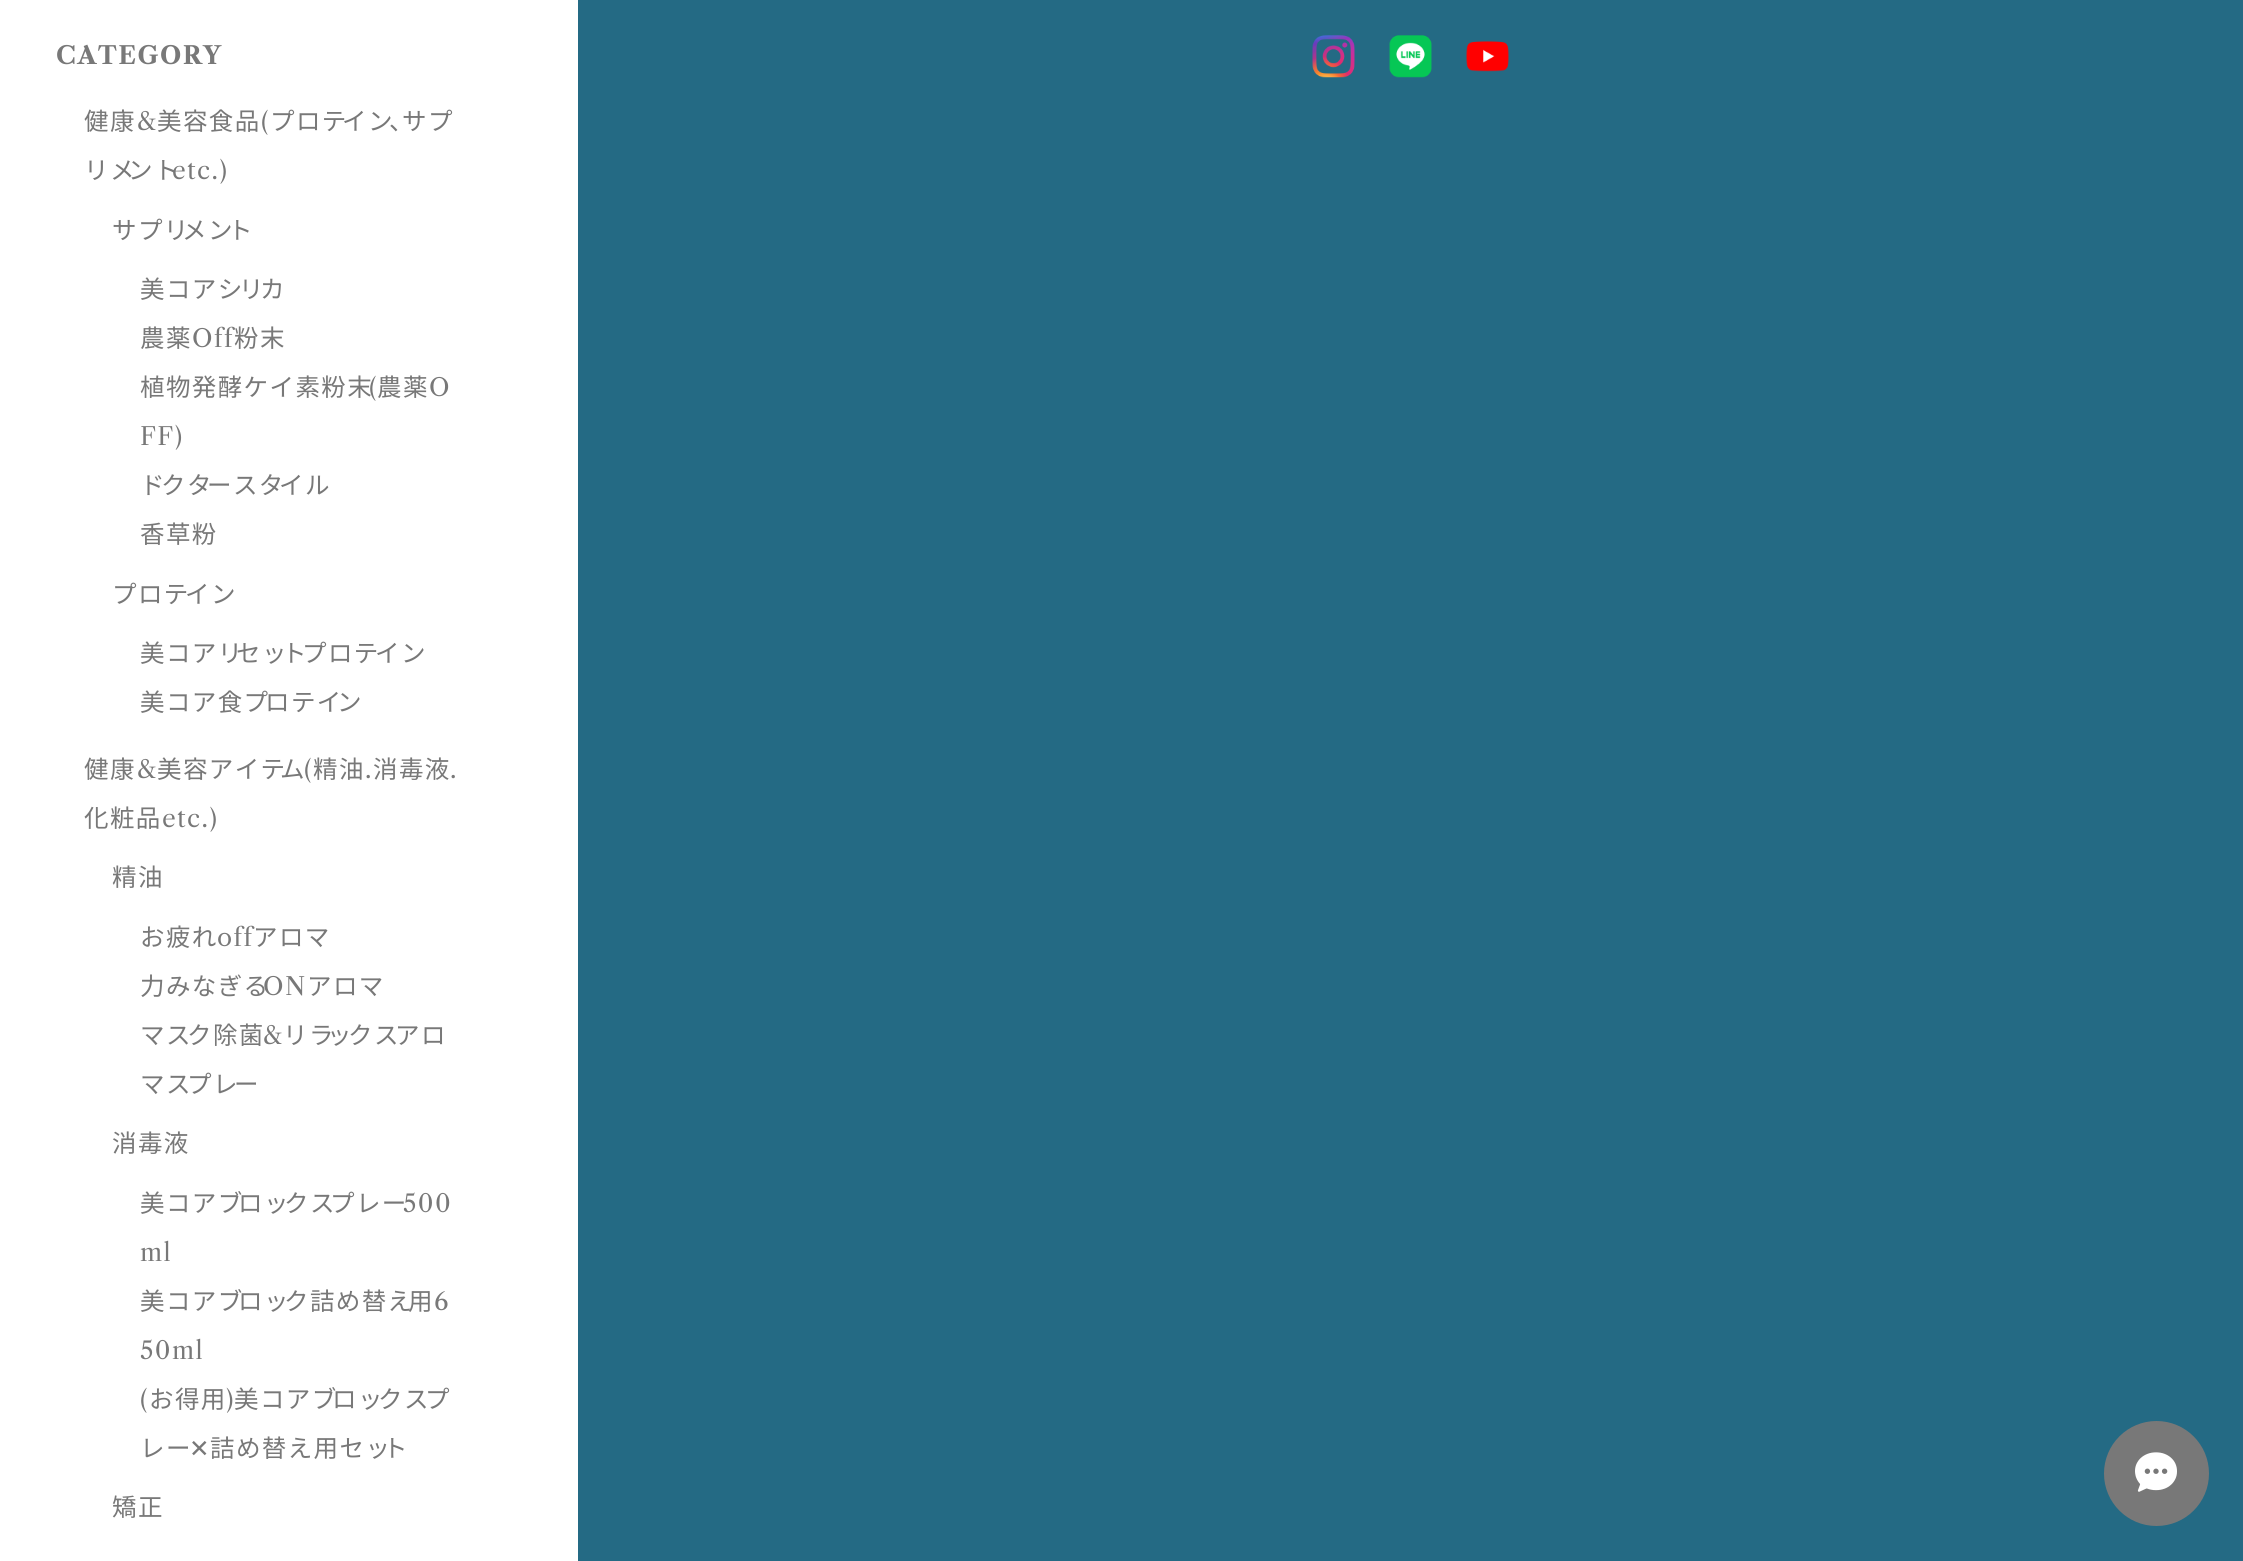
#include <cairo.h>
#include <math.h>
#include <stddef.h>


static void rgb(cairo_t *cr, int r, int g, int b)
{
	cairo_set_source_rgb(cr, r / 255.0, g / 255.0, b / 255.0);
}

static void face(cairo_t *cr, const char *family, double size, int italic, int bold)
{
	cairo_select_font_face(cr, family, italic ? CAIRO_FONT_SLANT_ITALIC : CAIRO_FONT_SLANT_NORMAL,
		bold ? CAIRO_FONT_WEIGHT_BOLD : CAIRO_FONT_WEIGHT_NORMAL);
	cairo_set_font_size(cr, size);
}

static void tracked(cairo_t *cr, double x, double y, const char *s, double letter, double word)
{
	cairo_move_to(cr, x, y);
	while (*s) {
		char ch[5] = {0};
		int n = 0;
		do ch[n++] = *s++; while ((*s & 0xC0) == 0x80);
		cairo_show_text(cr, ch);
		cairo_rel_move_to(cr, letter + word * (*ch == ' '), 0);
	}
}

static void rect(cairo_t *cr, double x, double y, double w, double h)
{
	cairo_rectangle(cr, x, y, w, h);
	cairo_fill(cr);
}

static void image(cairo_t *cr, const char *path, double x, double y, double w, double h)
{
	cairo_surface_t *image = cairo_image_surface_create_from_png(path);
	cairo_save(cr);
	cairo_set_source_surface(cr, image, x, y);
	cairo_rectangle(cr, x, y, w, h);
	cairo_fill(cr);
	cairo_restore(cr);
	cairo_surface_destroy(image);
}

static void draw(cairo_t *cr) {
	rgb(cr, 36, 106, 132);
	cairo_paint(cr);
	rgb(cr, 255, 255, 255);
	rect(cr, 0, 0, 578, 1561);
	face(cr, "Libre Caslon Text", 24.5, 0, 1);
	rgb(cr, 120, 120, 120);
	tracked(cr, 56, 64, "CATEGORY", 1.4, 0);
	face(cr, "Noto Sans JP", 24.5, 0, 0);
	tracked(cr, 84, 130, "健康", 1.4, 0);
	face(cr, "Libre Caslon Text", 24.5, 0, 0);
	tracked(cr, 136, 130, "&", 1.4, 0);
	face(cr, "Noto Sans JP", 24.5, 0, 0);
	tracked(cr, 157, 130, "美容食品", 1.4, 0);
	face(cr, "Libre Caslon Text", 24.5, 0, 0);
	tracked(cr, 261, 130, "(", 1.4, 0);
	face(cr, "Noto Sans JP", 24.5, 0, 0);
	tracked(cr, 270, 130, "プロテ", 1.4, 0);
	tracked(cr, 342, 130, "イン", 1.4, 0);
	tracked(cr, 389, 130, "、", 1.4, 0);
	tracked(cr, 402, 130, "サプ", 1.4, 0);
	tracked(cr, 84, 179, "リメ", 1.4, 0);
	tracked(cr, 128, 179, "ント", 1.4, 0);
	face(cr, "Libre Caslon Text", 24.5, 0, 0);
	tracked(cr, 172, 179, "etc.)", 1.4, 0);
	face(cr, "Noto Sans JP", 24.5, 0, 0);
	tracked(cr, 112, 239, "サプリ", 1.4, 0);
	tracked(cr, 182, 239, "メン", 1.4, 0);
	tracked(cr, 228, 239, "ト", 1.4, 0);
	tracked(cr, 140, 298, "美コアシ", 1.4, 0);
	tracked(cr, 239, 298, "リ", 1.4, 0);
	tracked(cr, 260, 298, "カ", 1.4, 0);
	tracked(cr, 140, 347, "農薬", 1.4, 0);
	face(cr, "Libre Caslon Text", 24.5, 0, 0);
	tracked(cr, 192, 347, "Off", 1.4, 0);
	face(cr, "Noto Sans JP", 24.5, 0, 0);
	tracked(cr, 234, 347, "粉末", 1.4, 0);
	tracked(cr, 140, 396, "植物発酵ケイ素粉末", 1.4, 0);
	face(cr, "Libre Caslon Text", 24.5, 0, 0);
	tracked(cr, 369, 396, "(", 1.4, 0);
	face(cr, "Noto Sans JP", 24.5, 0, 0);
	tracked(cr, 377, 396, "農薬", 1.4, 0);
	face(cr, "Libre Caslon Text", 24.5, 0, 0);
	tracked(cr, 429, 396, "O", 1.4, 0);
	tracked(cr, 140, 445, "FF)", 1.4, 0);
	face(cr, "Noto Sans JP", 24.5, 0, 0);
	tracked(cr, 140, 494, "ド", 1.4, 0);
	tracked(cr, 161, 494, "クタ", 1.4, 0);
	tracked(cr, 207, 494, "ースタ", 1.4, 0);
	tracked(cr, 279, 494, "イル", 1.4, 0);
	tracked(cr, 140, 543, "香草粉", 1.4, 0);
	tracked(cr, 112, 603, "プロテ", 1.4, 0);
	tracked(cr, 185, 603, "イン", 1.4, 0);
	tracked(cr, 140, 662, "美コアリ", 1.4, 0);
	tracked(cr, 236, 662, "セッ", 1.4, 0);
	tracked(cr, 282, 662, "ト", 1.4, 0);
	tracked(cr, 302, 662, "プロテ", 1.4, 0);
	tracked(cr, 375, 662, "イン", 1.4, 0);
	tracked(cr, 140, 711, "美コア食プ", 1.4, 0);
	tracked(cr, 265, 711, "ロテイ", 1.4, 0);
	tracked(cr, 337, 711, "ン", 1.4, 0);
	tracked(cr, 84, 778, "健康", 1.4, 0);
	face(cr, "Libre Caslon Text", 24.5, 0, 0);
	tracked(cr, 136, 778, "&", 1.4, 0);
	face(cr, "Noto Sans JP", 24.5, 0, 0);
	tracked(cr, 157, 778, "美容アイテ", 1.4, 0);
	tracked(cr, 280, 778, "ム", 1.4, 0);
	face(cr, "Libre Caslon Text", 24.5, 0, 0);
	tracked(cr, 304, 778, "(", 1.4, 0);
	face(cr, "Noto Sans JP", 24.5, 0, 0);
	tracked(cr, 313, 778, "精油", 1.4, 0);
	face(cr, "Libre Caslon Text", 24.5, 0, 0);
	tracked(cr, 365, 778, ".", 1.4, 0);
	face(cr, "Noto Sans JP", 24.5, 0, 0);
	tracked(cr, 373, 778, "消毒液", 1.4, 0);
	face(cr, "Libre Caslon Text", 24.5, 0, 0);
	tracked(cr, 450, 778, ".", 1.4, 0);
	face(cr, "Noto Sans JP", 24.5, 0, 0);
	tracked(cr, 84, 827, "化粧品", 1.4, 0);
	face(cr, "Libre Caslon Text", 24.5, 0, 0);
	tracked(cr, 162, 827, "etc.)", 1.4, 0);
	face(cr, "Noto Sans JP", 24.5, 0, 0);
	tracked(cr, 112, 886, "精油", 1.4, 0);
	tracked(cr, 140, 946, "お疲れ", 1.4, 0);
	face(cr, "Libre Caslon Text", 24.5, 0, 0);
	tracked(cr, 217, 946, "off", 1.4, 0);
	face(cr, "Noto Sans JP", 24.5, 0, 0);
	tracked(cr, 253, 946, "アロマ", 1.4, 0);
	tracked(cr, 140, 995, "力みなぎる", 1.4, 0);
	face(cr, "Libre Caslon Text", 24.5, 0, 0);
	tracked(cr, 263, 995, "ON", 1.4, 0);
	face(cr, "Noto Sans JP", 24.5, 0, 0);
	tracked(cr, 307, 995, "アロマ", 1.4, 0);
	tracked(cr, 140, 1044, "マス", 1.4, 0);
	tracked(cr, 187, 1044, "ク除菌", 1.4, 0);
	face(cr, "Libre Caslon Text", 24.5, 0, 0);
	tracked(cr, 262, 1044, "&", 1.4, 0);
	face(cr, "Noto Sans JP", 24.5, 0, 0);
	tracked(cr, 283, 1044, "リラ", 1.4, 0);
	tracked(cr, 327, 1044, "ッ", 1.4, 0);
	tracked(cr, 348, 1044, "クス", 1.4, 0);
	tracked(cr, 395, 1044, "アロ", 1.4, 0);
	tracked(cr, 140, 1093, "マス", 1.4, 0);
	tracked(cr, 187, 1093, "プレ", 1.4, 0);
	tracked(cr, 234, 1093, "ー", 1.4, 0);
	tracked(cr, 112, 1152, "消毒液", 1.4, 0);
	tracked(cr, 140, 1212, "美コアブ", 1.4, 0);
	tracked(cr, 238, 1212, "ロッ", 1.4, 0);
	tracked(cr, 284, 1212, "クス", 1.4, 0);
	tracked(cr, 330, 1212, "プレー", 1.4, 0);
	face(cr, "Libre Caslon Text", 24.5, 0, 0);
	tracked(cr, 403, 1212, "500", 1.4, 0);
	tracked(cr, 140, 1261, "ml", 1.4, 0);
	face(cr, "Noto Sans JP", 24.5, 0, 0);
	tracked(cr, 140, 1310, "美コアブ", 1.4, 0);
	tracked(cr, 238, 1310, "ロッ", 1.4, 0);
	tracked(cr, 284, 1310, "ク詰め替え", 1.4, 0);
	tracked(cr, 408, 1310, "用", 1.4, 0);
	face(cr, "Libre Caslon Text", 24.5, 0, 0);
	tracked(cr, 434, 1310, "6", 1.4, 0);
	tracked(cr, 140, 1359, "50ml", 1.4, 0);
	tracked(cr, 140, 1408, "(", 1.4, 0);
	face(cr, "Noto Sans JP", 24.5, 0, 0);
	tracked(cr, 149, 1408, "お得用", 1.4, 0);
	face(cr, "Libre Caslon Text", 24.5, 0, 0);
	tracked(cr, 226, 1408, ")", 1.4, 0);
	face(cr, "Noto Sans JP", 24.5, 0, 0);
	tracked(cr, 234, 1408, "美コアブ", 1.4, 0);
	tracked(cr, 332, 1408, "ロッ", 1.4, 0);
	tracked(cr, 378, 1408, "クス", 1.4, 0);
	tracked(cr, 425, 1408, "プ", 1.4, 0);
	tracked(cr, 140, 1457, "レー", 1.4, 0);
	face(cr, "DejaVu Sans", 24.5, 0, 0);
	tracked(cr, 189, 1457, "✕", 1.4, 0);
	face(cr, "Noto Sans JP", 24.5, 0, 0);
	tracked(cr, 210, 1457, "詰め替え用セッ", 1.4, 0);
	tracked(cr, 383, 1457, "ト", 1.4, 0);
	tracked(cr, 112, 1516, "矯正", 1.4, 0);
	image(cr, "image0.png", 1312, 35, 43, 43);
	image(cr, "image1.png", 1389, 35, 43, 43);
	image(cr, "image2.png", 1466, 41, 43, 31);
	cairo_arc(cr, 2156.5, 1473.5, 52.5, 0, 2 * M_PI);
	cairo_fill(cr);
	image(cr, "image3.png", 2135, 1452, 42, 40);
}

int main(void) {
	cairo_surface_t *surface = cairo_image_surface_create(CAIRO_FORMAT_RGB24, 2243, 1561);
	cairo_t *cr = cairo_create(surface);
	cairo_font_options_t *options = cairo_font_options_create();
	cairo_font_options_set_hint_metrics(options, CAIRO_HINT_METRICS_OFF);
	cairo_font_options_set_hint_style(options, CAIRO_HINT_STYLE_NONE);
	cairo_set_font_options(cr, options);
	cairo_set_miter_limit(cr, 4);
	draw(cr);
	cairo_surface_write_to_png(surface, "render.png");
	cairo_font_options_destroy(options);
	cairo_destroy(cr);
	cairo_surface_destroy(surface);
	return 0;
}
